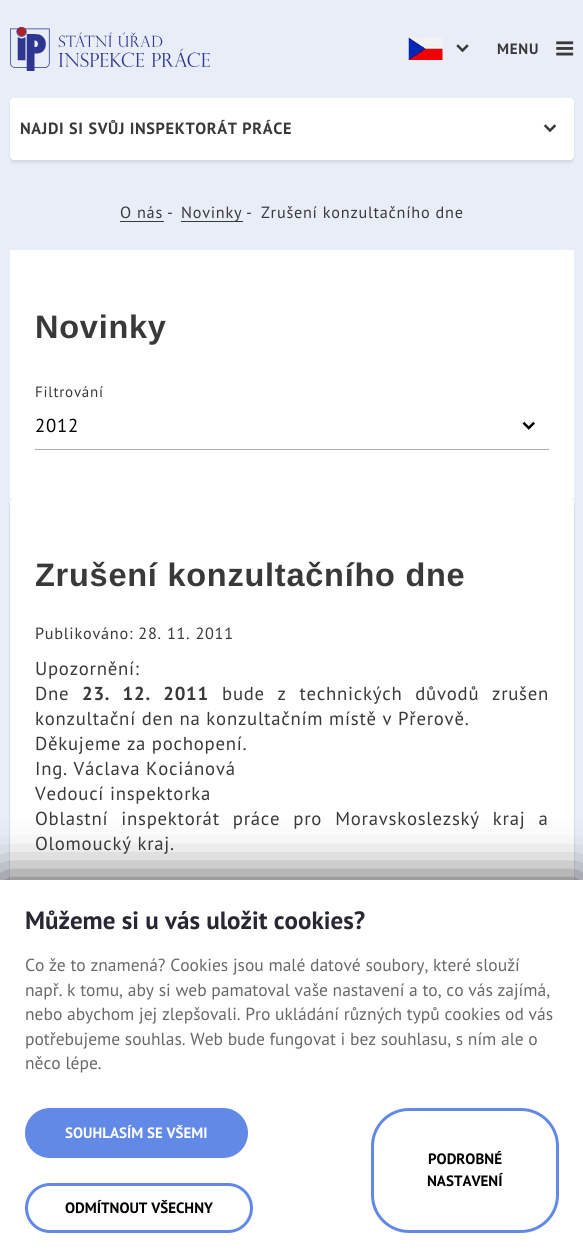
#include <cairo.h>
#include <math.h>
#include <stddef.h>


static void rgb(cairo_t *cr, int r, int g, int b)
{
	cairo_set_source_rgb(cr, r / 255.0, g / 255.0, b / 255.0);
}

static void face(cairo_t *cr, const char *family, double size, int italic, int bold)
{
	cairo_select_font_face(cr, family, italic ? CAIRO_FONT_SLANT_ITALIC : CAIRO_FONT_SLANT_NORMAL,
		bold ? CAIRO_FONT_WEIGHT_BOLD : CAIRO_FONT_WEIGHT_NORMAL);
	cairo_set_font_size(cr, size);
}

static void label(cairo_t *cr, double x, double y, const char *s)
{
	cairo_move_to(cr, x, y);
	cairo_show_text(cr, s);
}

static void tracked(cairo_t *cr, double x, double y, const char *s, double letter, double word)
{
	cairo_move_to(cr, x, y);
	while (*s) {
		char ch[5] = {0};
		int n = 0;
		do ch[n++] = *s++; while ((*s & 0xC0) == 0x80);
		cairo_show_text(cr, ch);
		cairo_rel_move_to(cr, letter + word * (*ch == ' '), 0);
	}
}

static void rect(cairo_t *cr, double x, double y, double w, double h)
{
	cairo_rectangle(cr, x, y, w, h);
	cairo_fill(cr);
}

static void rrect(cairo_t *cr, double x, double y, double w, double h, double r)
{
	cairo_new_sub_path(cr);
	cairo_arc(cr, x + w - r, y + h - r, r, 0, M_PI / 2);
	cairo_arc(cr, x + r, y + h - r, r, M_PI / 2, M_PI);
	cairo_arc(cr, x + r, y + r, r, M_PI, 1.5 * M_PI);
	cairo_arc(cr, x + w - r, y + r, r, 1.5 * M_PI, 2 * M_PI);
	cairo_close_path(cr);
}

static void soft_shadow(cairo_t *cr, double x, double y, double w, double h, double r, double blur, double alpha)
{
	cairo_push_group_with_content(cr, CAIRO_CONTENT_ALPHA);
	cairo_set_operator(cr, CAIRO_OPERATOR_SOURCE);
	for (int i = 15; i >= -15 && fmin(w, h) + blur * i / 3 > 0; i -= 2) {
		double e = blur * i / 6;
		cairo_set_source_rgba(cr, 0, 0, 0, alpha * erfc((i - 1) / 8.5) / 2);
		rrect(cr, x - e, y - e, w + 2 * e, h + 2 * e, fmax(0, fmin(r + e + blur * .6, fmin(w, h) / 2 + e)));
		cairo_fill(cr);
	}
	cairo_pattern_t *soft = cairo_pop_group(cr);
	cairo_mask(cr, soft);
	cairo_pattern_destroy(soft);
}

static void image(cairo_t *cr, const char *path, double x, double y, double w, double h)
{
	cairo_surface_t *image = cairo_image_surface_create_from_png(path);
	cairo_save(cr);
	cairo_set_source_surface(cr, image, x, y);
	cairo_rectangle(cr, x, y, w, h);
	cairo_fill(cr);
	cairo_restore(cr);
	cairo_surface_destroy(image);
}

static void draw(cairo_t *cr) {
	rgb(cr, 232, 237, 247);
	cairo_paint(cr);
	image(cr, "image0.png", 10, 27, 200, 44);
	face(cr, "PT Sans", 15, 0, 1);
	rgb(cr, 57, 57, 57);
	tracked(cr, 497, 54, "MENU", 0.75, 0);
	image(cr, "image1.png", 556, 41, 18, 15);
	image(cr, "image2.png", 408, 37, 35, 23);
	image(cr, "image3.png", 456, 44, 13, 9);
	rgb(cr, 0, 0, 0);
	soft_shadow(cr, 10, 100, 564, 63, 4, 1, 0.08);
	rgb(cr, 255, 255, 255);
	rrect(cr, 10, 98, 564, 62, 4);
	cairo_fill(cr);
	face(cr, "PT Sans", 16.25, 0, 1);
	rgb(cr, 57, 57, 57);
	tracked(cr, 20, 134, "NAJDI SI SVŮJ INSPEKTORÁT PRÁCE", 0.65, 0);
	image(cr, "image4.png", 543, 124, 14, 9);
	face(cr, "PT Sans", 16.25, 0, 0);
	tracked(cr, 120, 218, "O nás", 0.75, 0);
	rect(cr, 120, 221, 44, 1);
	tracked(cr, 167, 218, "-", 0.75, 0);
	rect(cr, 181, 221, 62, 1);
	tracked(cr, 181, 218, "Novinky", 0.75, 0);
	tracked(cr, 246, 218, "-", 0.75, 0);
	tracked(cr, 261, 218, "Zrušení konzultačního dne", 0.75, 0);
	rgb(cr, 255, 255, 255);
	rect(cr, 10, 250, 564, 248);
	face(cr, "Liberation Sans", 32.5, 0, 1);
	rgb(cr, 57, 57, 57);
	tracked(cr, 35, 338, "Novinky", 0.75, 0);
	face(cr, "PT Sans", 15, 0, 0);
	tracked(cr, 35, 397, "Filtrování", 0.75, 0);
	rgb(cr, 172, 175, 173);
	rect(cr, 35, 449, 514, 1);
	face(cr, "PT Sans", 18.75, 0, 0);
	rgb(cr, 0, 0, 0);
	tracked(cr, 35, 432, "2012", 0.75, 0);
	image(cr, "image5.png", 522, 421, 13, 9);
	rgb(cr, 0, 0, 0);
	soft_shadow(cr, 10, 500, 564, 446, 4, 1, 0.18);
	rgb(cr, 255, 255, 255);
	rrect(cr, 10, 498, 564, 446, 4);
	cairo_fill(cr);
	face(cr, "Liberation Sans", 32.5, 0, 1);
	rgb(cr, 57, 57, 57);
	tracked(cr, 35, 586, "Zrušení konzultačního dne", 0.75, 0);
	face(cr, "PT Sans", 16.25, 0, 0);
	tracked(cr, 35, 639, "Publikováno: 28. 11. 2011", 0.75, 0);
	face(cr, "PT Sans", 18.75, 0, 0);
	tracked(cr, 35, 675, "Upozornění:", 0.75, 0);
	tracked(cr, 35, 700, "Dne", 0.75, 0);
	face(cr, "PT Sans", 18.75, 0, 1);
	tracked(cr, 82, 700, "23. 12. 2011", 0.75, 7);
	face(cr, "PT Sans", 18.75, 0, 0);
	tracked(cr, 222, 700, "bude z technických důvodů zrušen", 0.75, 7);
	tracked(cr, 35, 725, "konzultační den na konzultačním místě v Přerově.", 0.75, 0);
	tracked(cr, 35, 750, "Děkujeme za pochopení.", 0.75, 0);
	tracked(cr, 35, 775, "Ing. Václava Kociánová", 0.75, 0);
	tracked(cr, 35, 800, "Vedoucí inspektorka", 0.75, 0);
	tracked(cr, 35, 825, "Oblastní inspektorát práce pro Moravskoslezský kraj a", 0.75, 7.25);
	tracked(cr, 35, 850, "Olomoucký kraj.", 0.75, 0);
	rgb(cr, 59, 59, 59);
	soft_shadow(cr, 0, 881, 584, 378, 0, 25, 1);
	rgb(cr, 255, 255, 255);
	rect(cr, 0, 880, 583, 377);
	face(cr, "PT Sans", 25, 0, 1);
	rgb(cr, 39, 40, 51);
	label(cr, 25, 929, "Můžeme si u vás uložit cookies?");
	face(cr, "PT Sans", 17.5, 0, 0);
	rgb(cr, 104, 104, 104);
	label(cr, 25, 971, "Co že to znamená? Cookies jsou malé datové soubory, které slouží");
	label(cr, 25, 996, "např. k tomu, aby si web pamatoval vaše nastavení a to, co vás zajímá,");
	label(cr, 25, 1020, "nebo abychom jej zlepšovali. Pro ukládání různých typů cookies od vás");
	label(cr, 25, 1045, "potřebujeme souhlas. Web bude fungovat i bez souhlasu, s ním ale o");
	label(cr, 25, 1069, "něco lépe.");
	rgb(cr, 98, 137, 230);
	rrect(cr, 26.5, 1109.5, 220, 47, 23.5);
	cairo_fill_preserve(cr);
	cairo_set_line_width(cr, 3);
	cairo_stroke(cr);
	face(cr, "PT Sans", 15, 0, 1);
	rgb(cr, 255, 255, 255);
	label(cr, 65, 1138, "SOUHLASÍM SE VŠEMI");
	rrect(cr, 26.5, 1184.5, 225, 47, 23.5);
	rgb(cr, 98, 137, 230);
	cairo_stroke(cr);
	rgb(cr, 0, 0, 0);
	label(cr, 65, 1213, "ODMÍTNOUT VŠECHNY");
	rrect(cr, 372.5, 1109.5, 185, 122, 36.5);
	rgb(cr, 98, 137, 230);
	cairo_stroke(cr);
	rgb(cr, 0, 0, 0);
	label(cr, 428, 1164, "PODROBNÉ");
	label(cr, 427, 1186, "NASTAVENÍ");
}

int main(void) {
	cairo_surface_t *surface = cairo_image_surface_create(CAIRO_FORMAT_RGB24, 583, 1257);
	cairo_t *cr = cairo_create(surface);
	cairo_font_options_t *options = cairo_font_options_create();
	cairo_font_options_set_hint_metrics(options, CAIRO_HINT_METRICS_OFF);
	cairo_font_options_set_hint_style(options, CAIRO_HINT_STYLE_NONE);
	cairo_set_font_options(cr, options);
	cairo_set_miter_limit(cr, 4);
	draw(cr);
	cairo_surface_write_to_png(surface, "render.png");
	cairo_font_options_destroy(options);
	cairo_destroy(cr);
	cairo_surface_destroy(surface);
	return 0;
}
